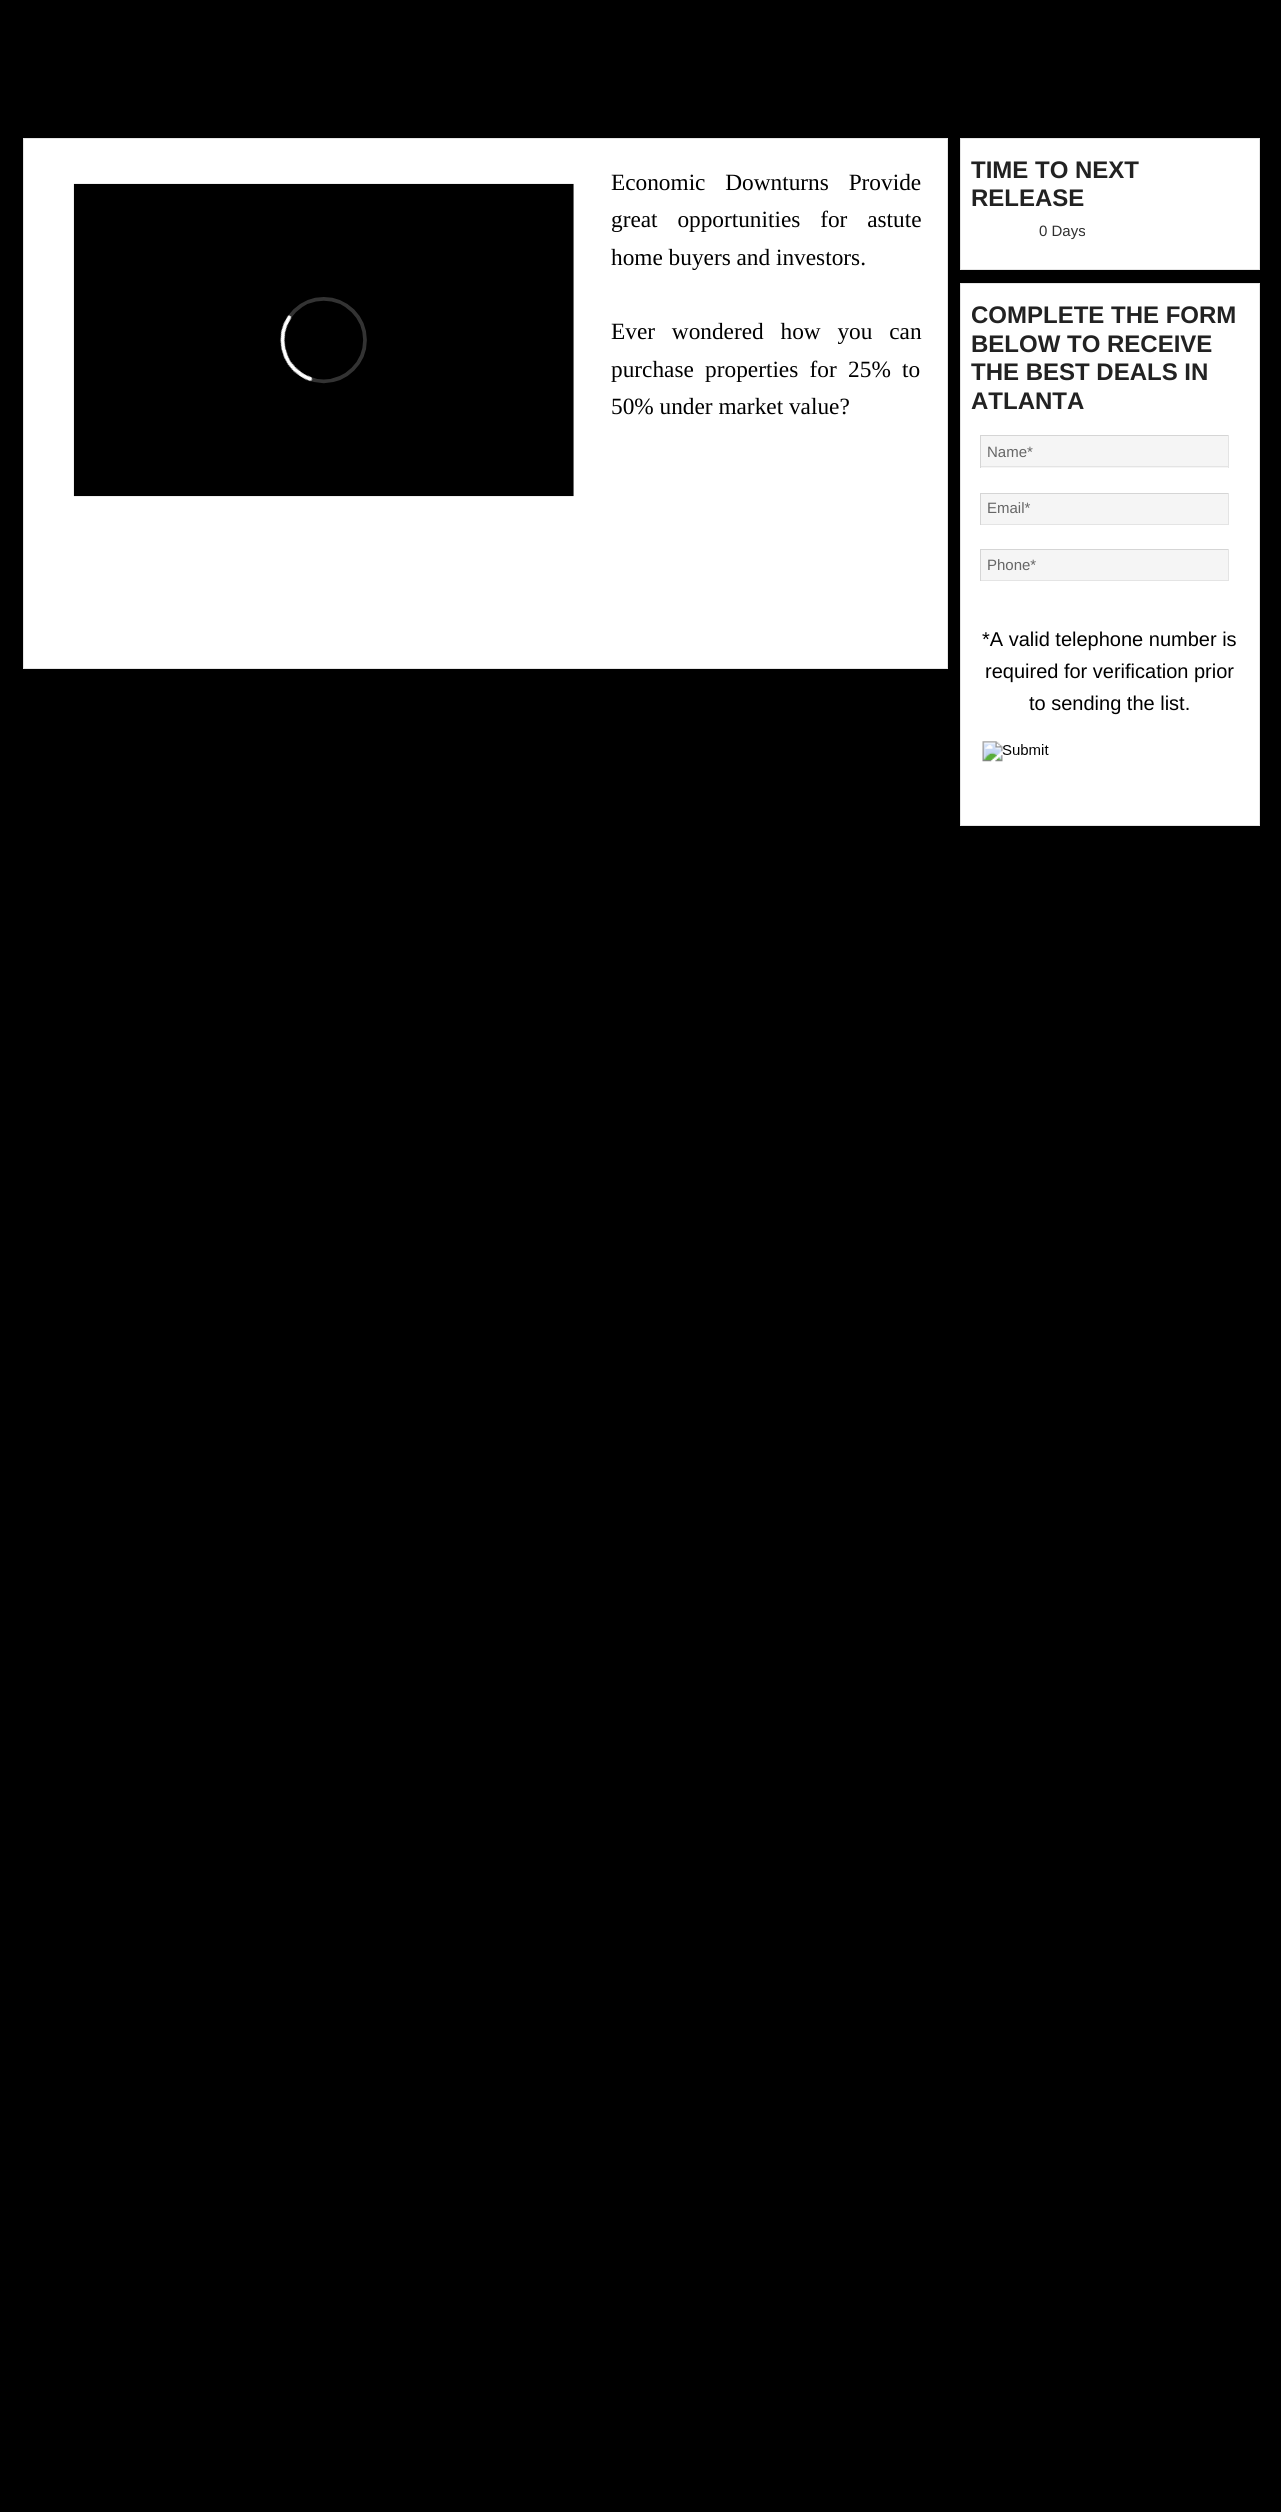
#include <cairo.h>
#include <math.h>
#include <stddef.h>


static void rgb(cairo_t *cr, int r, int g, int b)
{
	cairo_set_source_rgb(cr, r / 255.0, g / 255.0, b / 255.0);
}

static void face(cairo_t *cr, const char *family, double size, int italic, int bold)
{
	cairo_select_font_face(cr, family, italic ? CAIRO_FONT_SLANT_ITALIC : CAIRO_FONT_SLANT_NORMAL,
		bold ? CAIRO_FONT_WEIGHT_BOLD : CAIRO_FONT_WEIGHT_NORMAL);
	cairo_set_font_size(cr, size);
}

static void label(cairo_t *cr, double x, double y, const char *s)
{
	cairo_move_to(cr, x, y);
	cairo_show_text(cr, s);
}

static void tracked(cairo_t *cr, double x, double y, const char *s, double letter, double word)
{
	cairo_move_to(cr, x, y);
	while (*s) {
		char ch[5] = {0};
		int n = 0;
		do ch[n++] = *s++; while ((*s & 0xC0) == 0x80);
		cairo_show_text(cr, ch);
		cairo_rel_move_to(cr, letter + word * (*ch == ' '), 0);
	}
}

static void rect(cairo_t *cr, double x, double y, double w, double h)
{
	cairo_rectangle(cr, x, y, w, h);
	cairo_fill(cr);
}

static void image(cairo_t *cr, const char *path, double x, double y, double w, double h)
{
	cairo_surface_t *image = cairo_image_surface_create_from_png(path);
	cairo_save(cr);
	cairo_set_source_surface(cr, image, x, y);
	cairo_rectangle(cr, x, y, w, h);
	cairo_fill(cr);
	cairo_restore(cr);
	cairo_surface_destroy(image);
}

static void draw(cairo_t *cr) {
	rgb(cr, 0, 0, 0);
	cairo_paint(cr);
	rgb(cr, 255, 255, 255);
	cairo_rectangle(cr, 23.5, 138.5, 924, 530);
	cairo_fill_preserve(cr);
	rgb(cr, 229, 229, 229);
	cairo_set_line_width(cr, 1);
	cairo_stroke(cr);
	image(cr, "image0.png", 73, 183, 501, 314);
	face(cr, "Liberation Serif", 23.3, 0, 0);
	rgb(cr, 0, 0, 0);
	tracked(cr, 611, 190, "Economic Downturns Provide", 0, 14);
	tracked(cr, 611, 227, "great opportunities for astute", 0, 14);
	label(cr, 611, 265, "home buyers and investors.");
	tracked(cr, 611, 339, "Ever wondered how you can", 0, 11);
	tracked(cr, 611, 377, "purchase properties for 25% to", 0, 5.5);
	label(cr, 611, 414, "50% under market value?");
	rgb(cr, 255, 255, 255);
	cairo_rectangle(cr, 960.5, 138.5, 299, 131);
	cairo_fill_preserve(cr);
	rgb(cr, 229, 229, 229);
	cairo_stroke(cr);
	face(cr, "Liberation Sans", 24, 0, 1);
	rgb(cr, 34, 34, 34);
	label(cr, 971, 178, "TIME TO NEXT");
	label(cr, 971, 206, "RELEASE");
	face(cr, "Liberation Sans", 15, 0, 0);
	rgb(cr, 48, 48, 48);
	label(cr, 1039, 236, "0 Days");
	rgb(cr, 255, 255, 255);
	cairo_rectangle(cr, 960.5, 283.5, 299, 542);
	cairo_fill_preserve(cr);
	rgb(cr, 229, 229, 229);
	cairo_stroke(cr);
	face(cr, "Liberation Sans", 24, 0, 1);
	rgb(cr, 34, 34, 34);
	label(cr, 971, 323, "COMPLETE THE FORM");
	label(cr, 971, 352, "BELOW TO RECEIVE");
	label(cr, 971, 380, "THE BEST DEALS IN");
	label(cr, 971, 409, "ATLANTA");
	rgb(cr, 245, 245, 245);
	rect(cr, 981, 436, 247, 32);
	rgb(cr, 213, 213, 213);
	rect(cr, 980, 435, 249, 1);
	rgb(cr, 228, 228, 228);
	rect(cr, 1228, 435, 1, 33);
	rect(cr, 980, 466, 249, 1);
	rgb(cr, 213, 213, 213);
	rect(cr, 980, 435, 1, 33);
	face(cr, "Liberation Sans", 15, 0, 0);
	rgb(cr, 102, 102, 102);
	label(cr, 987, 457, "Name*");
	rgb(cr, 245, 245, 245);
	rect(cr, 981, 494, 247, 30);
	rgb(cr, 213, 213, 213);
	rect(cr, 980, 493, 249, 1);
	rgb(cr, 228, 228, 228);
	rect(cr, 1228, 493, 1, 32);
	rect(cr, 980, 524, 249, 1);
	rgb(cr, 213, 213, 213);
	rect(cr, 980, 493, 1, 32);
	rgb(cr, 102, 102, 102);
	label(cr, 987, 513, "Email*");
	rgb(cr, 245, 245, 245);
	rect(cr, 981, 550, 247, 30);
	rgb(cr, 213, 213, 213);
	rect(cr, 980, 549, 249, 1);
	rgb(cr, 228, 228, 228);
	rect(cr, 1228, 549, 1, 32);
	rect(cr, 980, 580, 249, 1);
	rgb(cr, 213, 213, 213);
	rect(cr, 980, 549, 1, 32);
	rgb(cr, 102, 102, 102);
	label(cr, 987, 570, "Phone*");
	face(cr, "Liberation Sans", 20, 0, 0);
	rgb(cr, 0, 0, 0);
	label(cr, 982, 646, "*A valid telephone number is");
	label(cr, 985, 678, "required for verification prior");
	label(cr, 1029, 710, "to sending the list.");
	image(cr, "image1.png", 982, 741, 67, 21);
}

int main(void) {
	cairo_surface_t *surface = cairo_image_surface_create(CAIRO_FORMAT_RGB24, 1281, 2512);
	cairo_t *cr = cairo_create(surface);
	cairo_font_options_t *options = cairo_font_options_create();
	cairo_font_options_set_hint_metrics(options, CAIRO_HINT_METRICS_OFF);
	cairo_font_options_set_hint_style(options, CAIRO_HINT_STYLE_NONE);
	cairo_set_font_options(cr, options);
	cairo_set_miter_limit(cr, 4);
	draw(cr);
	cairo_surface_write_to_png(surface, "render.png");
	cairo_font_options_destroy(options);
	cairo_destroy(cr);
	cairo_surface_destroy(surface);
	return 0;
}
